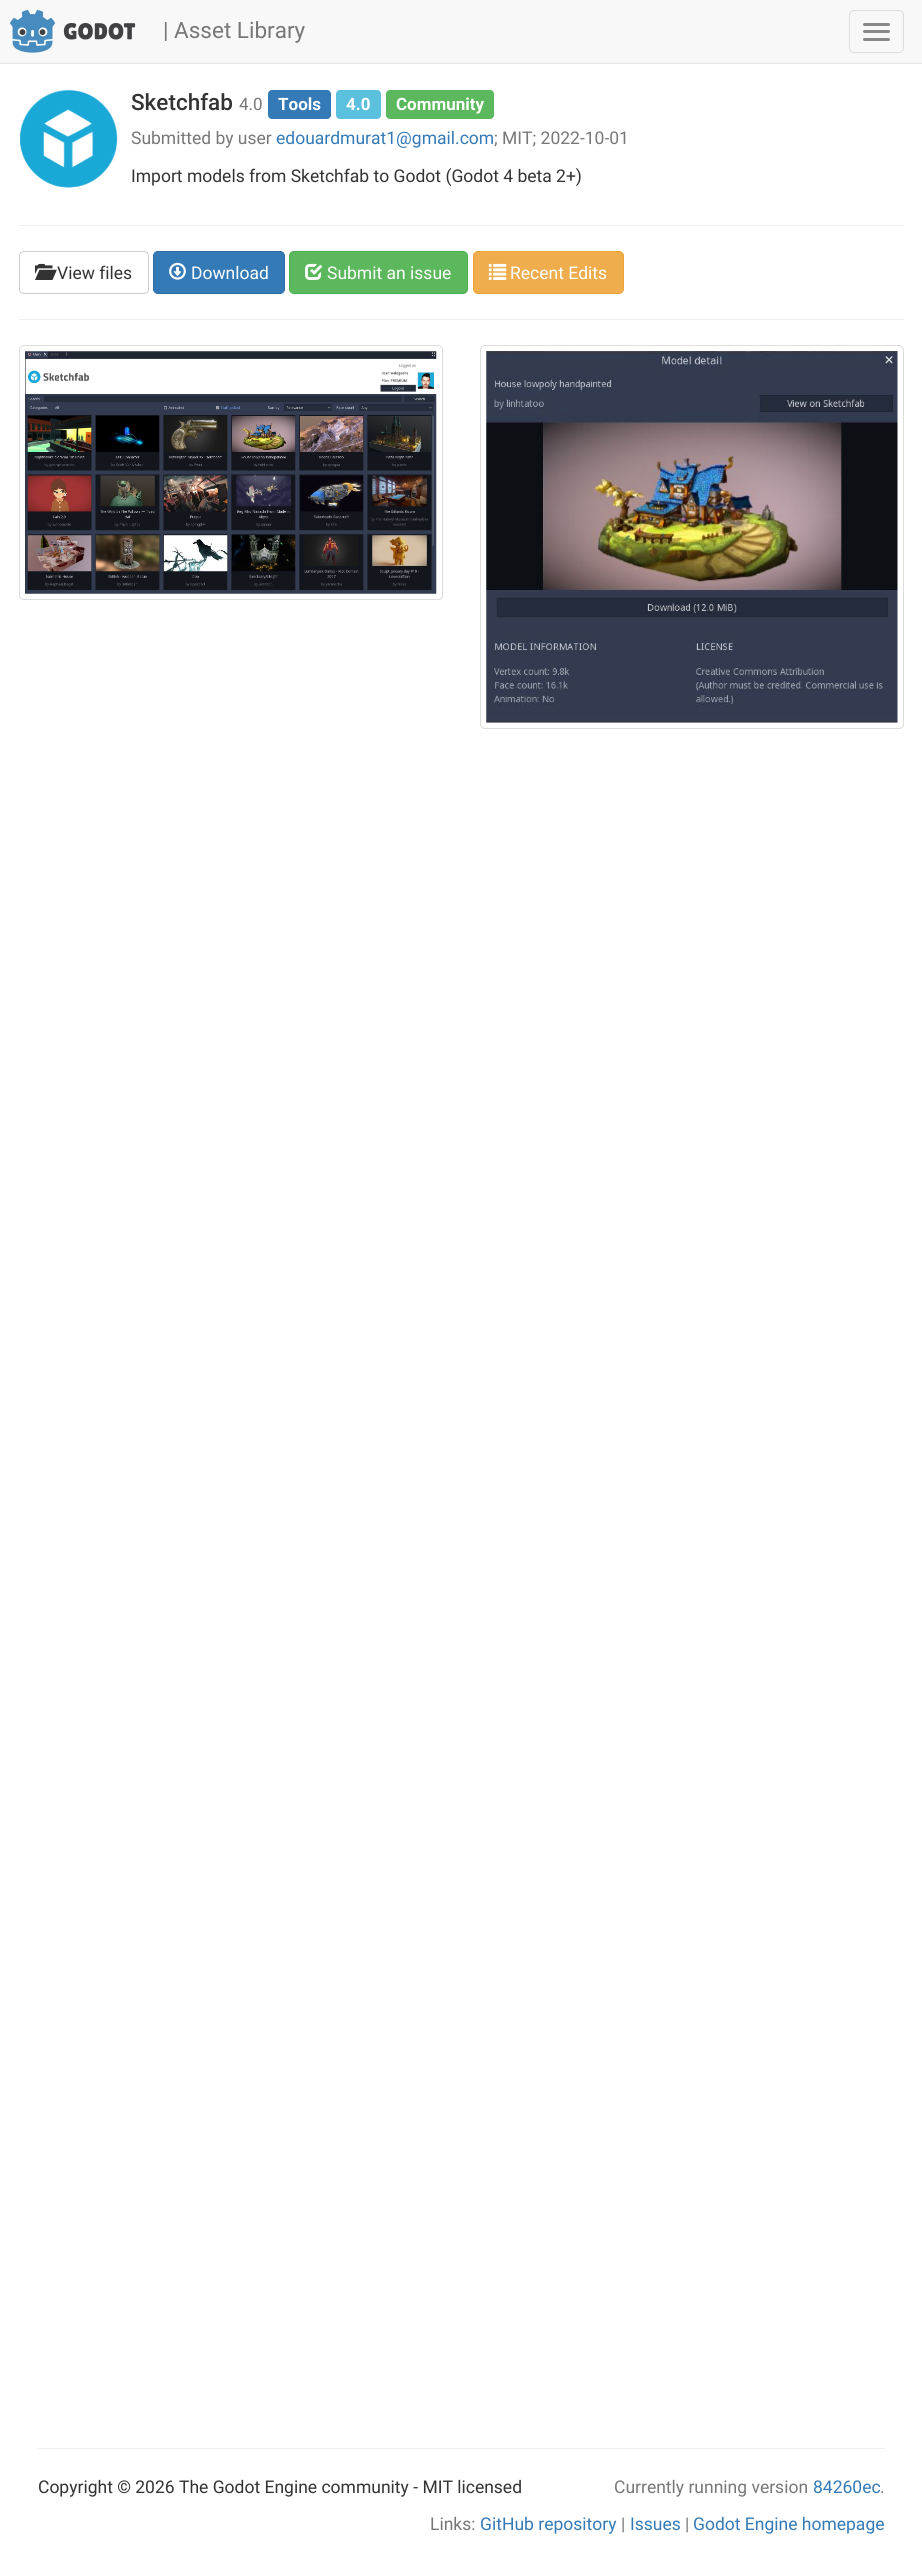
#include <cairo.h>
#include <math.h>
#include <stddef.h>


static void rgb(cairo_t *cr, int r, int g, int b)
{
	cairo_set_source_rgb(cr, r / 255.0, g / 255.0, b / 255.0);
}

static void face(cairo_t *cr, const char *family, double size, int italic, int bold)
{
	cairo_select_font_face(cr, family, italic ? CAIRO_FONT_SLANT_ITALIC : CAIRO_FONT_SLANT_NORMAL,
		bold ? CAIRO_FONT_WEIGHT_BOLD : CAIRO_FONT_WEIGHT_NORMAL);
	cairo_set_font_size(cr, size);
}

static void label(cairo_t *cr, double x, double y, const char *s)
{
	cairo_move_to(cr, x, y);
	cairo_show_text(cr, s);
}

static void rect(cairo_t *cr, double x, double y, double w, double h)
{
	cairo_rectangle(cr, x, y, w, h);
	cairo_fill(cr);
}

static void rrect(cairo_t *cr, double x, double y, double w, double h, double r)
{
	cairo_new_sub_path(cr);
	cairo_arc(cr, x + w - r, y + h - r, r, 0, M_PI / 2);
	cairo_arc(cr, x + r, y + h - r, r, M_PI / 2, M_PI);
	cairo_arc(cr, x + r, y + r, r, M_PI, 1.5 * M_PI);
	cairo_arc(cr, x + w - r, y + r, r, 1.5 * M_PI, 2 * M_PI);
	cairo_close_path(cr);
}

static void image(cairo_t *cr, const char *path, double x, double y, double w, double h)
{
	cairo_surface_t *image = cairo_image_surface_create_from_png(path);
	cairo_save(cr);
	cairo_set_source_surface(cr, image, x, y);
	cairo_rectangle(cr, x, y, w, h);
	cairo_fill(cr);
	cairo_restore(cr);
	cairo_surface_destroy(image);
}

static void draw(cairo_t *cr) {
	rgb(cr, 255, 255, 255);
	cairo_paint(cr);
	rgb(cr, 248, 248, 248);
	rect(cr, 0, 0, 922, 63);
	rgb(cr, 231, 231, 231);
	rect(cr, 0, 63, 922, 1);
	image(cr, "image0.png", 9, 9, 127, 44);
	face(cr, "Roboto", 22.5, 0, 0);
	rgb(cr, 119, 119, 119);
	label(cr, 163, 38, "| Asset Library");
	rrect(cr, 849.5, 10.5, 54, 42, 4.5);
	rgb(cr, 221, 221, 221);
	cairo_set_line_width(cr, 1);
	cairo_stroke(cr);
	rgb(cr, 136, 136, 136);
	rrect(cr, 863, 23, 27, 3, 1.5);
	cairo_fill(cr);
	rrect(cr, 863, 30, 27, 3, 1.5);
	cairo_fill(cr);
	rrect(cr, 863, 38, 27, 3, 1.5);
	cairo_fill(cr);
	image(cr, "image1.png", 20, 90, 98, 98);
	face(cr, "Roboto Medium", 22.5, 0, 0);
	rgb(cr, 51, 51, 51);
	label(cr, 131, 110, "Sketchfab");
	face(cr, "Roboto", 17, 0, 0);
	rgb(cr, 119, 119, 119);
	label(cr, 239, 110, "4.0");
	rgb(cr, 51, 122, 183);
	rrect(cr, 268, 90, 63, 29, 4);
	cairo_fill(cr);
	face(cr, "Roboto", 17, 0, 1);
	rgb(cr, 255, 255, 255);
	label(cr, 278, 110, "Tools");
	rgb(cr, 91, 192, 222);
	rrect(cr, 336, 90, 45, 29, 4);
	cairo_fill(cr);
	rgb(cr, 255, 255, 255);
	label(cr, 346, 110, "4.0");
	rgb(cr, 92, 184, 92);
	rrect(cr, 386, 90, 108, 29, 4);
	cairo_fill(cr);
	rgb(cr, 255, 255, 255);
	label(cr, 396, 110, "Community");
	face(cr, "Roboto", 17.5, 0, 0);
	rgb(cr, 119, 119, 119);
	label(cr, 131, 144, "Submitted by user");
	rgb(cr, 51, 122, 183);
	label(cr, 276, 144, "edouardmurat1@gmail.com");
	rgb(cr, 119, 119, 119);
	label(cr, 494, 144, "; MIT; 2022-10-01");
	rgb(cr, 51, 51, 51);
	label(cr, 131, 182, "Import models from Sketchfab to Godot (Godot 4 beta 2+)");
	rgb(cr, 238, 238, 238);
	rect(cr, 19, 225, 885, 1);
	rrect(cr, 19.5, 251.5, 129, 42, 4.5);
	rgb(cr, 204, 204, 204);
	cairo_stroke(cr);
	image(cr, "image2.png", 35, 263, 22, 17);
	rgb(cr, 51, 51, 51);
	label(cr, 57, 279, "View files");
	rgb(cr, 51, 122, 183);
	rrect(cr, 153.5, 251.5, 131, 42, 4.5);
	cairo_fill_preserve(cr);
	rgb(cr, 46, 109, 164);
	cairo_stroke(cr);
	image(cr, "image3.png", 169, 262, 17, 18);
	rgb(cr, 255, 255, 255);
	label(cr, 191, 279, "Download");
	rgb(cr, 92, 184, 92);
	rrect(cr, 289.5, 251.5, 178, 42, 4.5);
	cairo_fill_preserve(cr);
	rgb(cr, 76, 174, 76);
	cairo_stroke(cr);
	image(cr, "image4.png", 305, 263, 18, 17);
	rgb(cr, 255, 255, 255);
	label(cr, 327, 279, "Submit an issue");
	rgb(cr, 240, 173, 78);
	rrect(cr, 473.5, 251.5, 150, 42, 4.5);
	cairo_fill_preserve(cr);
	rgb(cr, 238, 162, 54);
	cairo_stroke(cr);
	image(cr, "image5.png", 488, 263, 19, 17);
	rgb(cr, 255, 255, 255);
	label(cr, 510, 279, "Recent Edits");
	rgb(cr, 238, 238, 238);
	rect(cr, 19, 319, 885, 1);
	rrect(cr, 19.5, 345.5, 423, 254, 4.5);
	rgb(cr, 221, 221, 221);
	cairo_stroke(cr);
	image(cr, "image6.png", 25, 351, 412, 243);
	rrect(cr, 480.5, 345.5, 423, 383, 4.5);
	cairo_stroke(cr);
	image(cr, "image7.png", 486, 351, 412, 372);
	rgb(cr, 238, 238, 238);
	rect(cr, 38, 2448, 847, 1);
	rgb(cr, 51, 51, 51);
	label(cr, 38, 2493, "Copyright © 2026 The Godot Engine community - MIT licensed");
	rgb(cr, 119, 119, 119);
	label(cr, 614, 2493, "Currently running version");
	rgb(cr, 51, 122, 183);
	label(cr, 813, 2493, "84260ec");
	rgb(cr, 119, 119, 119);
	label(cr, 880, 2493, ".");
	label(cr, 430, 2530, "Links:");
	rgb(cr, 51, 122, 183);
	label(cr, 480, 2530, "GitHub repository");
	rgb(cr, 119, 119, 119);
	label(cr, 621, 2530, "|");
	rgb(cr, 51, 122, 183);
	label(cr, 630, 2530, "Issues");
	rgb(cr, 119, 119, 119);
	label(cr, 685, 2530, "|");
	rgb(cr, 51, 122, 183);
	label(cr, 693, 2530, "Godot Engine homepage");
}

int main(void) {
	cairo_surface_t *surface = cairo_image_surface_create(CAIRO_FORMAT_RGB24, 922, 2563);
	cairo_t *cr = cairo_create(surface);
	cairo_font_options_t *options = cairo_font_options_create();
	cairo_font_options_set_hint_metrics(options, CAIRO_HINT_METRICS_OFF);
	cairo_font_options_set_hint_style(options, CAIRO_HINT_STYLE_NONE);
	cairo_set_font_options(cr, options);
	cairo_set_miter_limit(cr, 4);
	draw(cr);
	cairo_surface_write_to_png(surface, "render.png");
	cairo_font_options_destroy(options);
	cairo_destroy(cr);
	cairo_surface_destroy(surface);
	return 0;
}
